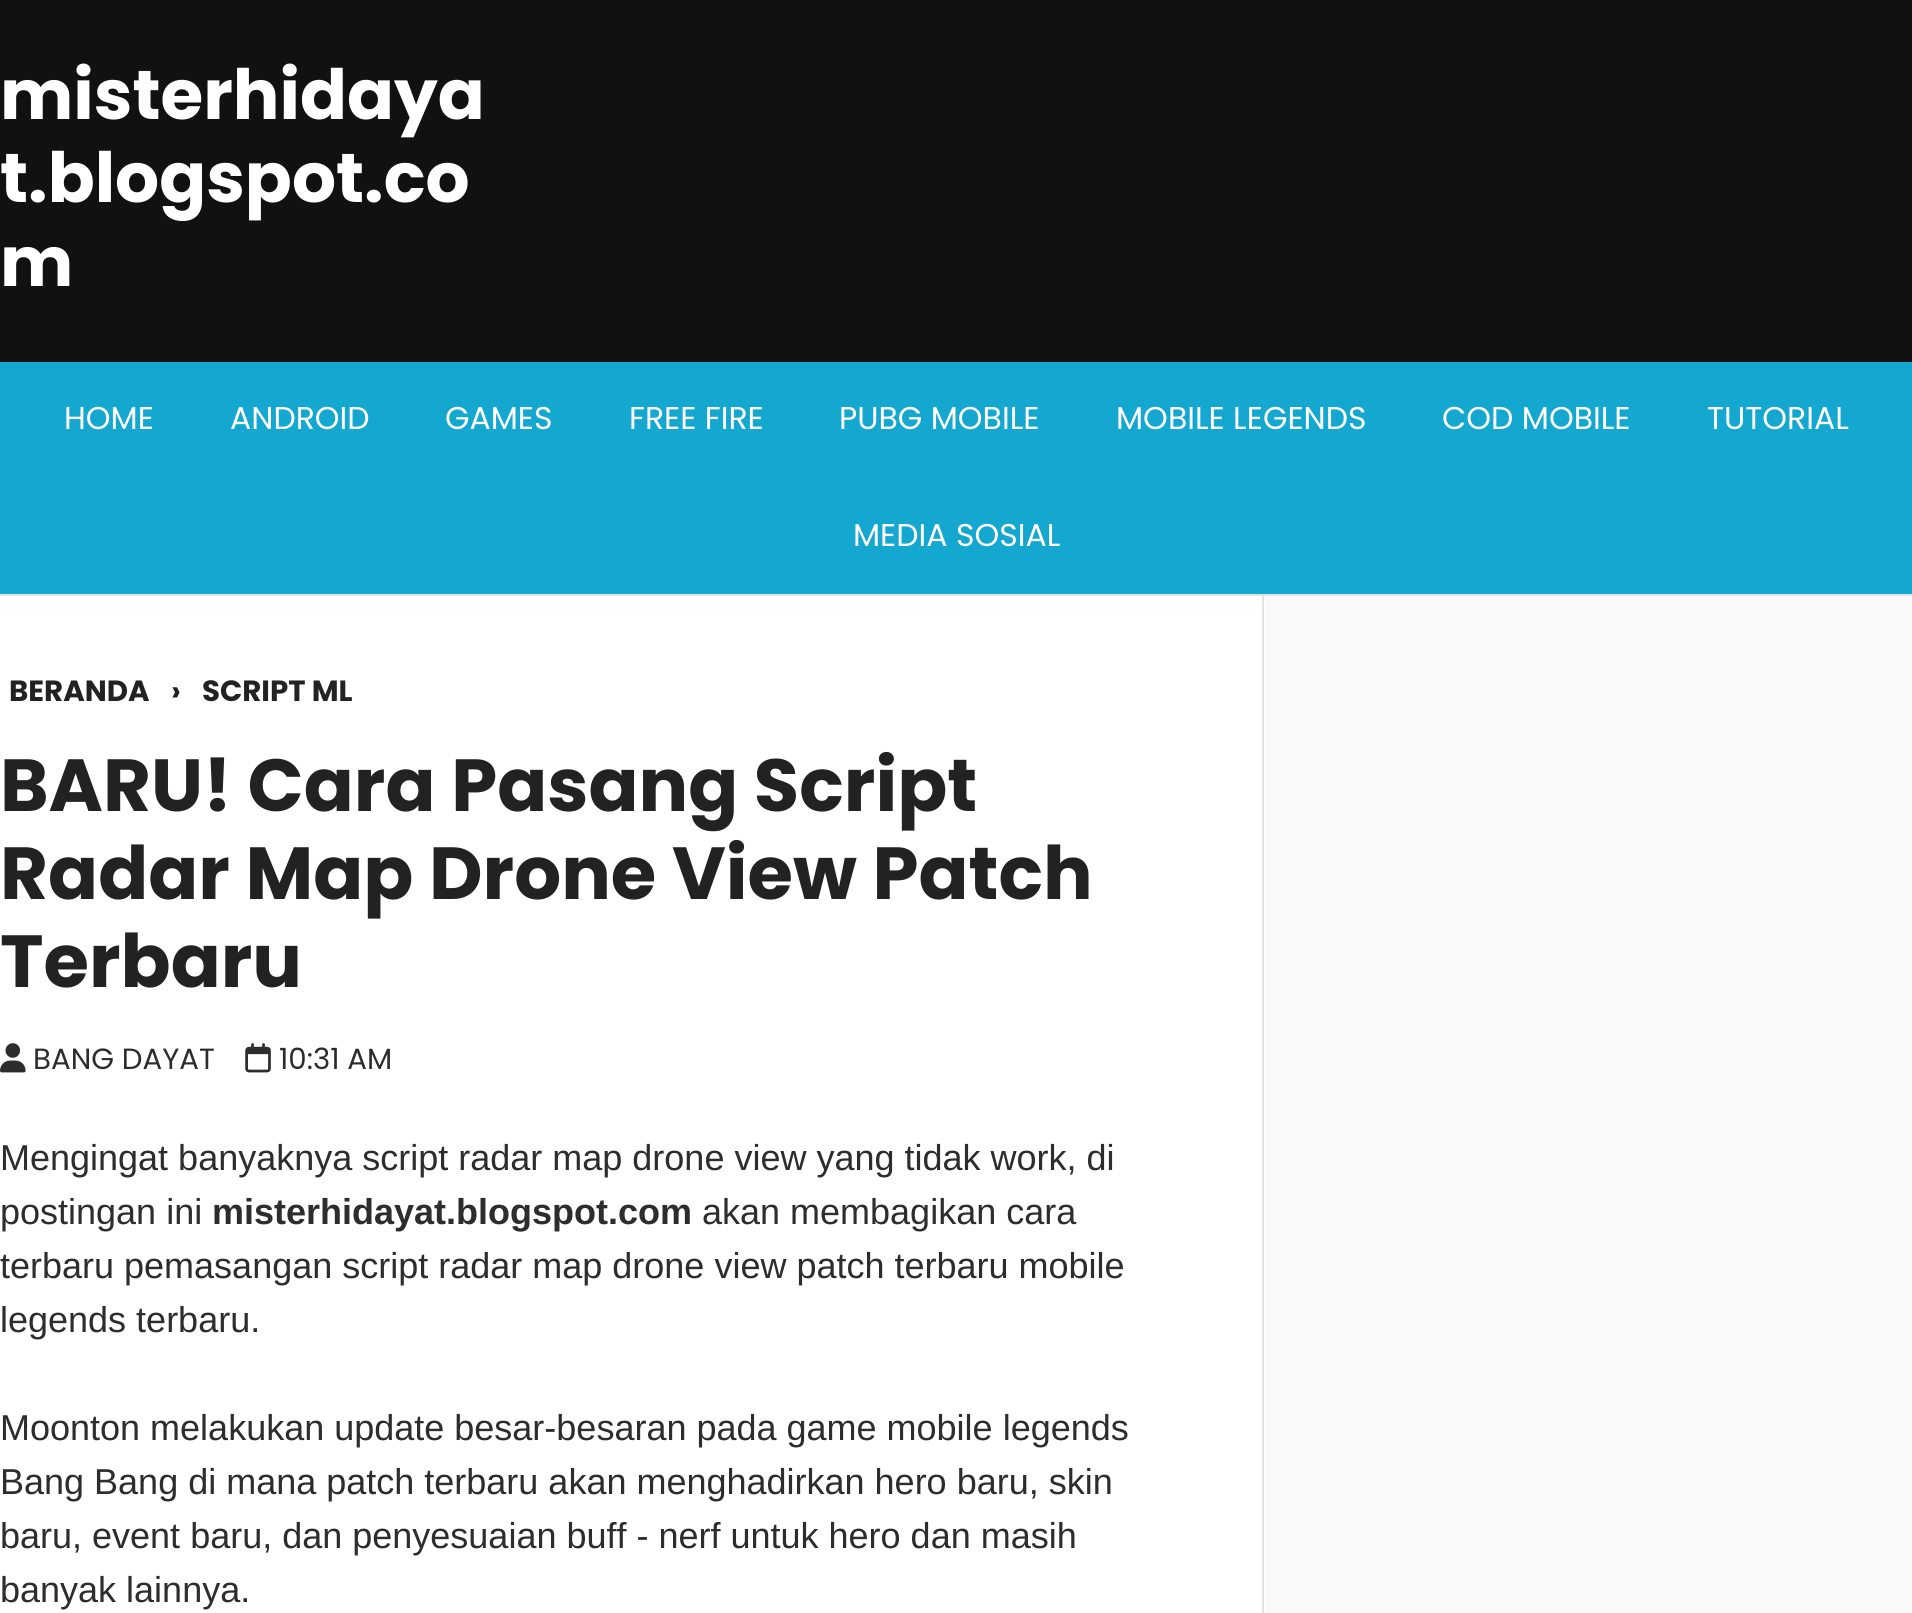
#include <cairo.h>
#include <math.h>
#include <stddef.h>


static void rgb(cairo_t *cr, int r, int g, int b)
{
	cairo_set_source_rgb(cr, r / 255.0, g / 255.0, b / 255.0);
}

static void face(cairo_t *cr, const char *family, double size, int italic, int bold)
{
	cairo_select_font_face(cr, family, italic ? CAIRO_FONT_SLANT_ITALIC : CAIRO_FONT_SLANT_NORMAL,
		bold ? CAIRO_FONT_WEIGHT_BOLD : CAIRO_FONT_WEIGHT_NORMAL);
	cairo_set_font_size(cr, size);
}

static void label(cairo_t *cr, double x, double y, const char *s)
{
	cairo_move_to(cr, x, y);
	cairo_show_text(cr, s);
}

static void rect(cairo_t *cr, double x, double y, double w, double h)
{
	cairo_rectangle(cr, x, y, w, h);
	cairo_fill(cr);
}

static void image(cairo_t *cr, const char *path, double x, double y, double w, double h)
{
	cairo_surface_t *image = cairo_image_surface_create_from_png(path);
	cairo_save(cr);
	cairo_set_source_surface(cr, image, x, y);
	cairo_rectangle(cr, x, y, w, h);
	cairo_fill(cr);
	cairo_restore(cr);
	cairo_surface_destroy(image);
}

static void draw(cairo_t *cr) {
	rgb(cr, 20, 167, 208);
	cairo_paint(cr);
	rgb(cr, 17, 17, 17);
	rect(cr, 0, 0, 1912, 362);
	face(cr, "Poppins", 69.25, 0, 1);
	rgb(cr, 255, 255, 255);
	label(cr, 0, 119, "misterhidaya");
	label(cr, 0, 202, "t.blogspot.co");
	label(cr, 0, 286, "m");
	face(cr, "Poppins", 31.5, 0, 0);
	label(cr, 64, 429, "HOME");
	label(cr, 230, 429, "ANDROID");
	label(cr, 445, 429, "GAMES");
	label(cr, 629, 429, "FREE FIRE");
	label(cr, 839, 429, "PUBG MOBILE");
	label(cr, 1116, 429, "MOBILE LEGENDS");
	label(cr, 1442, 429, "COD MOBILE");
	label(cr, 1707, 429, "TUTORIAL");
	label(cr, 853, 546, "MEDIA SOSIAL");
	rgb(cr, 226, 226, 226);
	rect(cr, 0, 594, 1912, 2);
	rgb(cr, 250, 250, 250);
	rect(cr, 1265, 596, 647, 1017);
	rgb(cr, 255, 255, 255);
	rect(cr, 0, 596, 1265, 1017);
	rgb(cr, 226, 226, 226);
	rect(cr, 1262, 596, 2, 1017);
	face(cr, "Poppins", 29.25, 0, 1);
	rgb(cr, 34, 34, 34);
	label(cr, 9, 701, "BERANDA");
	label(cr, 171, 701, "›");
	label(cr, 202, 701, "SCRIPT ML");
	face(cr, "Poppins", 73.75, 0, 1);
	label(cr, 0, 811, "BARU! Cara Pasang Script");
	label(cr, 0, 899, "Radar Map Drone View Patch");
	label(cr, 0, 987, "Terbaru");
	image(cr, "image0.png", 0, 1043, 26, 30);
	face(cr, "Poppins", 29.25, 0, 0);
	rgb(cr, 45, 45, 45);
	label(cr, 33, 1069, "BANG DAYAT");
	image(cr, "image1.png", 245, 1043, 26, 30);
	label(cr, 279, 1069, "10:31 AM");
	face(cr, "Arimo", 36, 0, 0);
	label(cr, 0, 1170, "Mengingat banyaknya script radar map drone view yang tidak work, di");
	label(cr, 0, 1224, "postingan ini");
	face(cr, "Arimo", 36, 0, 1);
	label(cr, 212, 1224, "misterhidayat.blogspot.com");
	face(cr, "Arimo", 36, 0, 0);
	label(cr, 702, 1224, "akan membagikan cara");
	label(cr, 0, 1278, "terbaru pemasangan script radar map drone view patch terbaru mobile");
	label(cr, 0, 1332, "legends terbaru.");
	label(cr, 0, 1440, "Moonton melakukan update besar-besaran pada game mobile legends");
	label(cr, 0, 1494, "Bang Bang di mana patch terbaru akan menghadirkan hero baru, skin");
	label(cr, 0, 1548, "baru, event baru, dan penyesuaian buff - nerf untuk hero dan masih");
	label(cr, 0, 1602, "banyak lainnya.");
}

int main(void) {
	cairo_surface_t *surface = cairo_image_surface_create(CAIRO_FORMAT_RGB24, 1912, 1613);
	cairo_t *cr = cairo_create(surface);
	cairo_font_options_t *options = cairo_font_options_create();
	cairo_font_options_set_hint_metrics(options, CAIRO_HINT_METRICS_OFF);
	cairo_font_options_set_hint_style(options, CAIRO_HINT_STYLE_NONE);
	cairo_set_font_options(cr, options);
	cairo_set_miter_limit(cr, 4);
	draw(cr);
	cairo_surface_write_to_png(surface, "render.png");
	cairo_font_options_destroy(options);
	cairo_destroy(cr);
	cairo_surface_destroy(surface);
	return 0;
}
